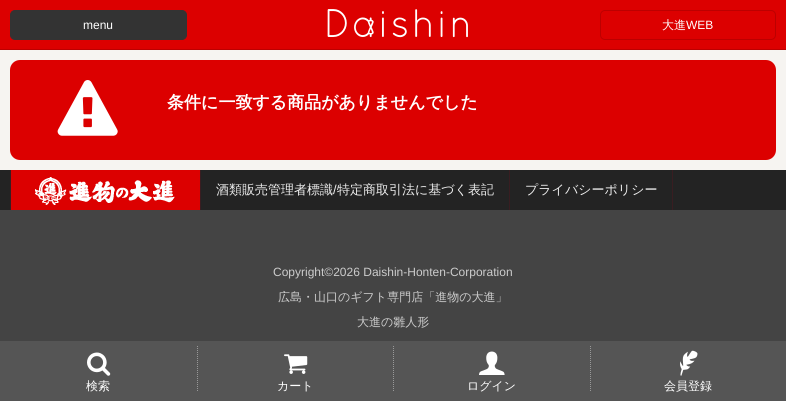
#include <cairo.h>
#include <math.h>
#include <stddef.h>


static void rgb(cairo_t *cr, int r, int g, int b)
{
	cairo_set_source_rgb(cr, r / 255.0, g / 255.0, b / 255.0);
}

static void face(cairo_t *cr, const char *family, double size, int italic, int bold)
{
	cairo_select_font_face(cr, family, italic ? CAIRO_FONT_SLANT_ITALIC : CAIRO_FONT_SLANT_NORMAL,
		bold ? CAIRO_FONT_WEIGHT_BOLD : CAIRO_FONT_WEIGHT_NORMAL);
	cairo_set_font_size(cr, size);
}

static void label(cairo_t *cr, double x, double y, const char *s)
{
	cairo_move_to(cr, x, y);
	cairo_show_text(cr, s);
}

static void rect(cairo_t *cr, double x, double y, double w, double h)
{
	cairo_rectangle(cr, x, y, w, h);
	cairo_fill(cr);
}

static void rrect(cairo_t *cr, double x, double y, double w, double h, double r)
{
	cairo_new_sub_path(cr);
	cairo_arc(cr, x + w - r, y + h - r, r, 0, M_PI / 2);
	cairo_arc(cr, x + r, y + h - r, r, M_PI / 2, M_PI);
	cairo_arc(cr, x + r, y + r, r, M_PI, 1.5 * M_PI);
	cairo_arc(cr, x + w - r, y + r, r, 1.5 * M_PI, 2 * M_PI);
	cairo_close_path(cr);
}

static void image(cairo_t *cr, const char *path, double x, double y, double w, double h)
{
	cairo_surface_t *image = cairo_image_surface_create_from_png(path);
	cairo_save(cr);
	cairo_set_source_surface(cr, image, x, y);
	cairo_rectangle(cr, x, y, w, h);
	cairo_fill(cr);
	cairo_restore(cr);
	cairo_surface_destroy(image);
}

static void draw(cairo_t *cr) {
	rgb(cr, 246, 244, 241);
	cairo_paint(cr);
	rgb(cr, 220, 0, 0);
	rect(cr, 0, 0, 786, 49);
	rgb(cr, 188, 0, 0);
	rect(cr, 0, 49, 786, 1);
	rgb(cr, 51, 51, 51);
	rrect(cr, 10.5, 10.5, 176, 29, 4.5);
	cairo_fill_preserve(cr);
	cairo_set_line_width(cr, 1);
	cairo_stroke(cr);
	face(cr, "Liberation Sans", 12, 0, 0);
	rgb(cr, 255, 255, 255);
	label(cr, 83, 29, "menu");
	image(cr, "image0.png", 327, 9, 141, 29);
	rrect(cr, 600.5, 10.5, 175, 29, 4.5);
	rgb(cr, 188, 0, 0);
	cairo_stroke(cr);
	face(cr, "WenQuanYi Zen Hei Medium", 12, 0, 0);
	rgb(cr, 255, 255, 255);
	label(cr, 662, 29, "大進");
	face(cr, "Liberation Sans", 12, 0, 0);
	label(cr, 686, 29, "WEB");
	rgb(cr, 85, 85, 85);
	rect(cr, 0, 341, 786, 60);
	image(cr, "image1.png", 87, 352, 24, 24);
	face(cr, "WenQuanYi Zen Hei Medium", 12, 0, 0);
	rgb(cr, 255, 255, 255);
	label(cr, 86, 390, "検索");
	cairo_new_path(cr);
	cairo_move_to(cr, 197.5, 346);
	cairo_line_to(cr, 197.5, 391);
	rgb(cr, 153, 153, 153);
	cairo_set_dash(cr, (double[]){1, 1}, 2, 0);
	cairo_stroke(cr);
	image(cr, "image2.png", 284, 354, 24, 20);
	rgb(cr, 255, 255, 255);
	label(cr, 277, 390, "カート");
	cairo_new_path(cr);
	cairo_move_to(cr, 393.5, 346);
	cairo_line_to(cr, 393.5, 391);
	rgb(cr, 153, 153, 153);
	cairo_stroke(cr);
	image(cr, "image3.png", 479, 351, 26, 24);
	rgb(cr, 255, 255, 255);
	label(cr, 467, 390, "ログイン");
	cairo_new_path(cr);
	cairo_move_to(cr, 590.5, 346);
	cairo_line_to(cr, 590.5, 391);
	rgb(cr, 153, 153, 153);
	cairo_stroke(cr);
	image(cr, "image4.png", 680, 350, 18, 26);
	rgb(cr, 255, 255, 255);
	label(cr, 664, 390, "会員登録");
	rgb(cr, 220, 0, 0);
	rrect(cr, 10, 60, 766, 100, 10);
	cairo_fill(cr);
	image(cr, "image5.png", 57, 80, 61, 56);
	face(cr, "WenQuanYi Zen Hei", 17, 0, 1);
	rgb(cr, 255, 255, 255);
	label(cr, 167, 108, "条件に一致する商品がありませんでした");
	rgb(cr, 68, 68, 68);
	rect(cr, 0, 210, 786, 131);
	rgb(cr, 35, 35, 35);
	rect(cr, 0, 170, 786, 40);
	rgb(cr, 220, 0, 0);
	rect(cr, 11, 170, 189, 40);
	rgb(cr, 57, 29, 33);
	rect(cr, 200, 170, 1, 40);
	rect(cr, 10, 170, 1, 40);
	image(cr, "image6.png", 35, 177, 140, 28);
	rect(cr, 509, 170, 1, 40);
	face(cr, "WenQuanYi Zen Hei Medium", 13, 0, 0);
	rgb(cr, 238, 238, 238);
	label(cr, 216, 194, "酒類販売管理者標識");
	face(cr, "Liberation Sans", 13, 0, 0);
	label(cr, 333, 194, "/");
	face(cr, "WenQuanYi Zen Hei Medium", 13, 0, 0);
	label(cr, 337, 194, "特定商取引法に基づく表記");
	rgb(cr, 57, 29, 33);
	rect(cr, 672, 170, 1, 40);
	rgb(cr, 238, 238, 238);
	label(cr, 525, 194, "プライバシーポリシー");
	face(cr, "Liberation Sans", 12, 0, 0);
	rgb(cr, 204, 204, 204);
	label(cr, 273, 276, "Copyright©2026 Daishin-Honten-Corporation");
	face(cr, "WenQuanYi Zen Hei Medium", 12, 0, 0);
	label(cr, 278, 301, "広島・山口のギフト専門店「進物の大進」");
	label(cr, 357, 326, "大進の雛人形");
}

int main(void) {
	cairo_surface_t *surface = cairo_image_surface_create(CAIRO_FORMAT_RGB24, 786, 401);
	cairo_t *cr = cairo_create(surface);
	cairo_font_options_t *options = cairo_font_options_create();
	cairo_font_options_set_hint_metrics(options, CAIRO_HINT_METRICS_OFF);
	cairo_font_options_set_hint_style(options, CAIRO_HINT_STYLE_NONE);
	cairo_set_font_options(cr, options);
	cairo_set_miter_limit(cr, 4);
	draw(cr);
	cairo_surface_write_to_png(surface, "render.png");
	cairo_font_options_destroy(options);
	cairo_destroy(cr);
	cairo_surface_destroy(surface);
	return 0;
}
